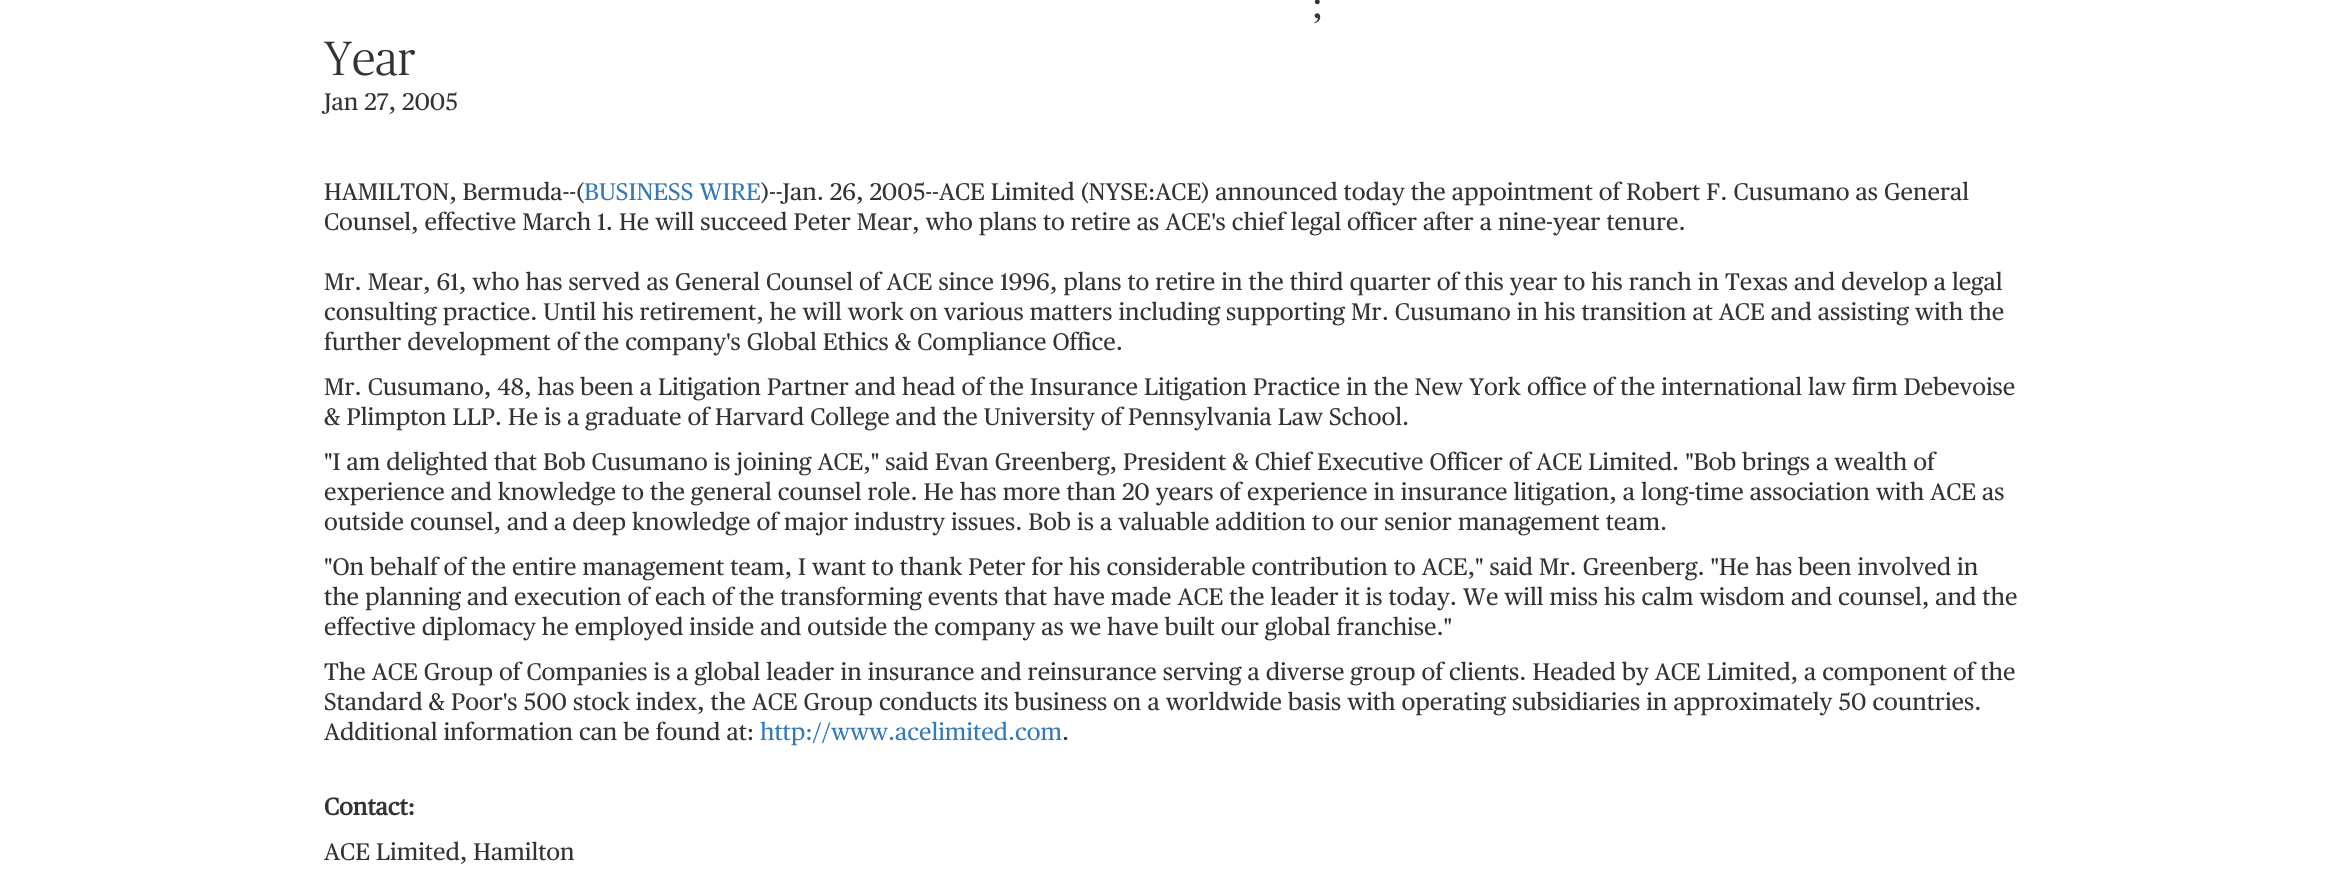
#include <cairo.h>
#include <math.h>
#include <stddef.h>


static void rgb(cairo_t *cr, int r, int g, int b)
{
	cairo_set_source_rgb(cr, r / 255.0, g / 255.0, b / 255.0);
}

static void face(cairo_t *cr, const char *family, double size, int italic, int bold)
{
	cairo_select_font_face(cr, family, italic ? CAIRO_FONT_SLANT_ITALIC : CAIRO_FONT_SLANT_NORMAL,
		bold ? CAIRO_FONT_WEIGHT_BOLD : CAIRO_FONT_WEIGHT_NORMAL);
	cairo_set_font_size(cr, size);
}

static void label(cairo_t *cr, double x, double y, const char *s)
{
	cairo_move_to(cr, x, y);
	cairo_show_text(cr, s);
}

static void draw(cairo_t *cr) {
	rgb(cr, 255, 255, 255);
	cairo_paint(cr);
	face(cr, "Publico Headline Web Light", 48, 0, 0);
	rgb(cr, 51, 51, 51);
	label(cr, 1313, 18, ";");
	label(cr, 324, 75, "Year");
	face(cr, "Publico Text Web", 24, 0, 0);
	label(cr, 324, 110, "Jan 27, 2005");
	label(cr, 324, 200, "HAMILTON, Bermuda--(");
	rgb(cr, 51, 122, 183);
	label(cr, 584, 200, "BUSINESS WIRE");
	rgb(cr, 51, 51, 51);
	label(cr, 761, 200, ")--Jan. 26, 2005--ACE Limited (NYSE:ACE) announced today the appointment of Robert F. Cusumano as General");
	label(cr, 324, 230, "Counsel, effective March 1. He will succeed Peter Mear, who plans to retire as ACE's chief legal officer after a nine-year tenure.");
	label(cr, 324, 290, "Mr. Mear, 61, who has served as General Counsel of ACE since 1996, plans to retire in the third quarter of this year to his ranch in Texas and develop a legal");
	label(cr, 324, 320, "consulting practice. Until his retirement, he will work on various matters including supporting Mr. Cusumano in his transition at ACE and assisting with the");
	label(cr, 324, 350, "further development of the company's Global Ethics & Compliance Office.");
	label(cr, 324, 395, "Mr. Cusumano, 48, has been a Litigation Partner and head of the Insurance Litigation Practice in the New York office of the international law firm Debevoise");
	label(cr, 324, 425, "& Plimpton LLP. He is a graduate of Harvard College and the University of Pennsylvania Law School.");
	label(cr, 324, 470, "\"I am delighted that Bob Cusumano is joining ACE,\" said Evan Greenberg, President & Chief Executive Officer of ACE Limited. \"Bob brings a wealth of");
	label(cr, 324, 500, "experience and knowledge to the general counsel role. He has more than 20 years of experience in insurance litigation, a long-time association with ACE as");
	label(cr, 324, 530, "outside counsel, and a deep knowledge of major industry issues. Bob is a valuable addition to our senior management team.");
	label(cr, 324, 575, "\"On behalf of the entire management team, I want to thank Peter for his considerable contribution to ACE,\" said Mr. Greenberg. \"He has been involved in");
	label(cr, 324, 605, "the planning and execution of each of the transforming events that have made ACE the leader it is today. We will miss his calm wisdom and counsel, and the");
	label(cr, 324, 635, "effective diplomacy he employed inside and outside the company as we have built our global franchise.\"");
	label(cr, 324, 680, "The ACE Group of Companies is a global leader in insurance and reinsurance serving a diverse group of clients. Headed by ACE Limited, a component of the");
	label(cr, 324, 710, "Standard & Poor's 500 stock index, the ACE Group conducts its business on a worldwide basis with operating subsidiaries in approximately 50 countries.");
	label(cr, 324, 740, "Additional information can be found at:");
	rgb(cr, 51, 122, 183);
	label(cr, 760, 740, "http://www.acelimited.com");
	rgb(cr, 51, 51, 51);
	label(cr, 1062, 740, ".");
	face(cr, "Publico Text Web", 24, 0, 1);
	label(cr, 324, 815, "Contact:");
	face(cr, "Publico Text Web", 24, 0, 0);
	label(cr, 324, 860, "ACE Limited, Hamilton");
}

int main(void) {
	cairo_surface_t *surface = cairo_image_surface_create(CAIRO_FORMAT_RGB24, 2343, 869);
	cairo_t *cr = cairo_create(surface);
	cairo_font_options_t *options = cairo_font_options_create();
	cairo_font_options_set_hint_metrics(options, CAIRO_HINT_METRICS_OFF);
	cairo_font_options_set_hint_style(options, CAIRO_HINT_STYLE_NONE);
	cairo_set_font_options(cr, options);
	cairo_set_miter_limit(cr, 4);
	draw(cr);
	cairo_surface_write_to_png(surface, "render.png");
	cairo_font_options_destroy(options);
	cairo_destroy(cr);
	cairo_surface_destroy(surface);
	return 0;
}
